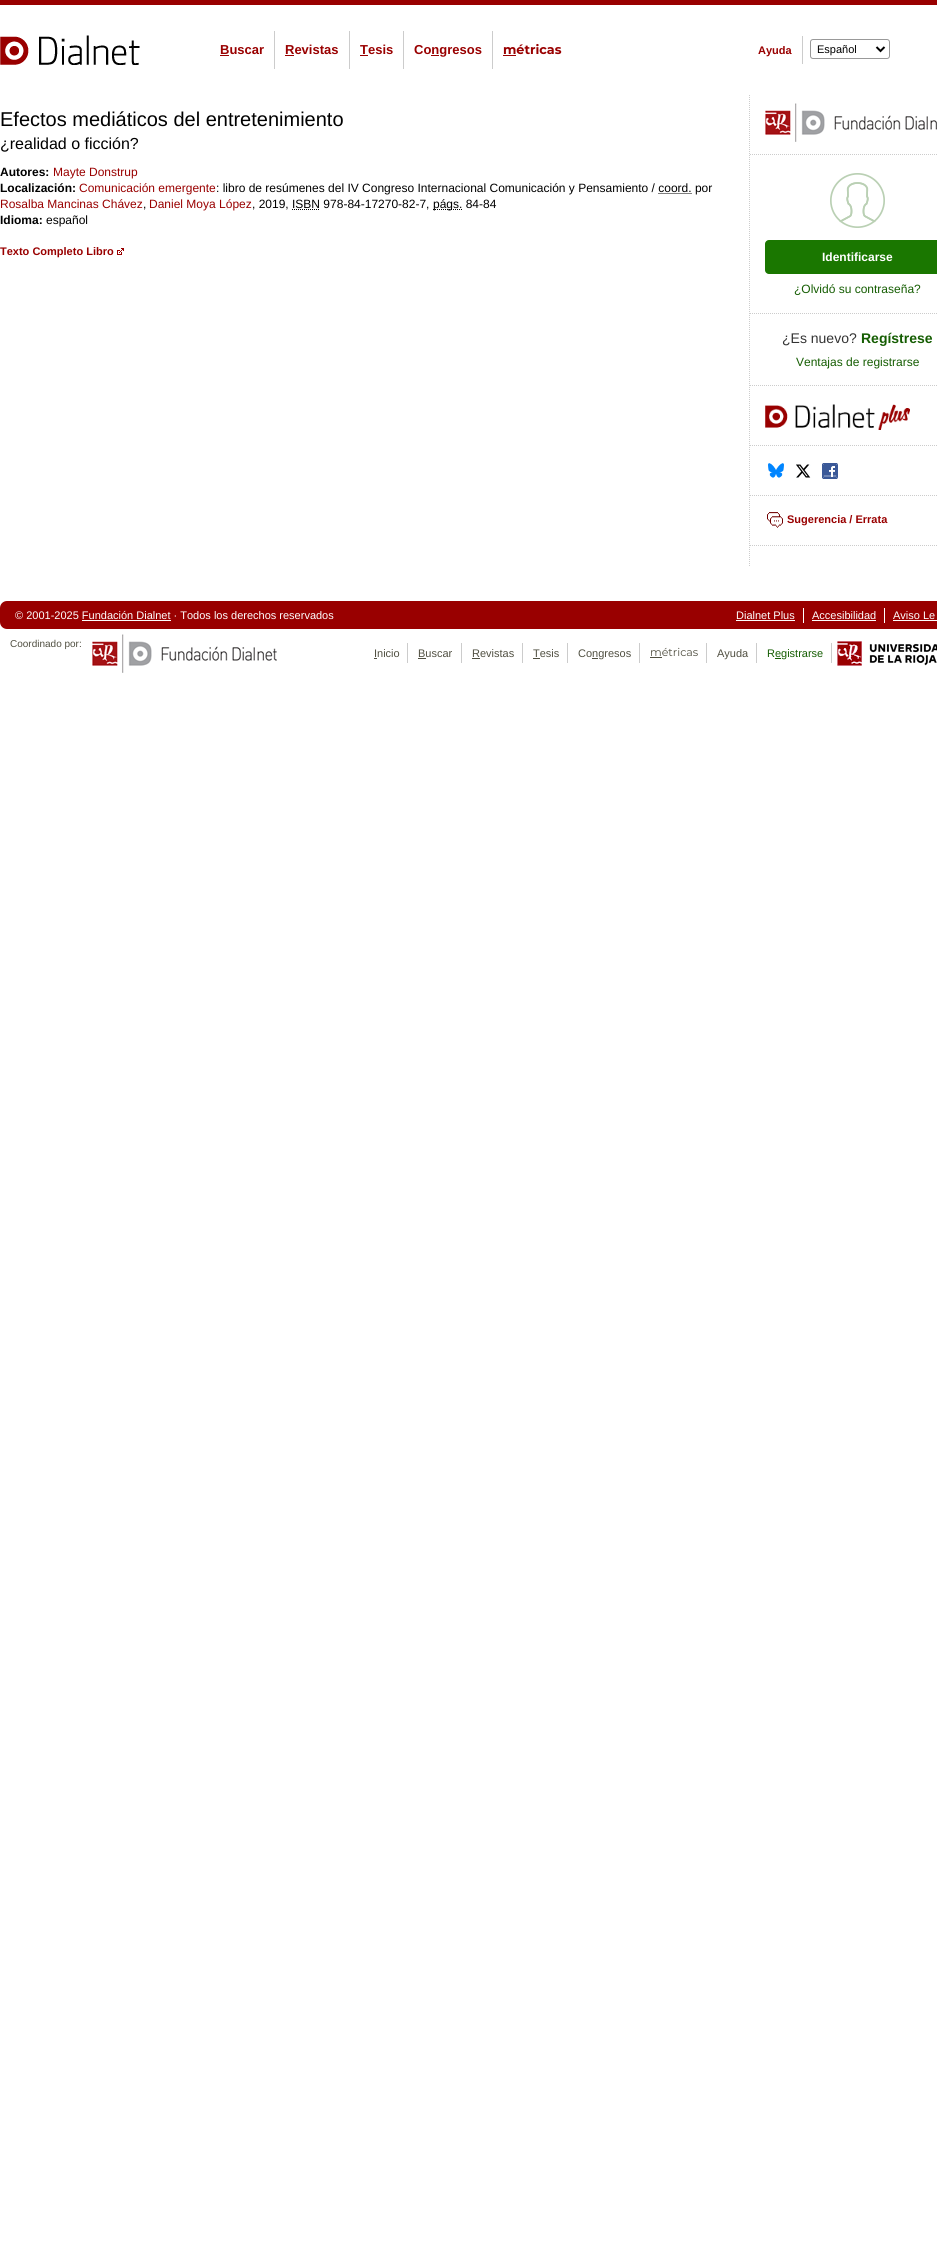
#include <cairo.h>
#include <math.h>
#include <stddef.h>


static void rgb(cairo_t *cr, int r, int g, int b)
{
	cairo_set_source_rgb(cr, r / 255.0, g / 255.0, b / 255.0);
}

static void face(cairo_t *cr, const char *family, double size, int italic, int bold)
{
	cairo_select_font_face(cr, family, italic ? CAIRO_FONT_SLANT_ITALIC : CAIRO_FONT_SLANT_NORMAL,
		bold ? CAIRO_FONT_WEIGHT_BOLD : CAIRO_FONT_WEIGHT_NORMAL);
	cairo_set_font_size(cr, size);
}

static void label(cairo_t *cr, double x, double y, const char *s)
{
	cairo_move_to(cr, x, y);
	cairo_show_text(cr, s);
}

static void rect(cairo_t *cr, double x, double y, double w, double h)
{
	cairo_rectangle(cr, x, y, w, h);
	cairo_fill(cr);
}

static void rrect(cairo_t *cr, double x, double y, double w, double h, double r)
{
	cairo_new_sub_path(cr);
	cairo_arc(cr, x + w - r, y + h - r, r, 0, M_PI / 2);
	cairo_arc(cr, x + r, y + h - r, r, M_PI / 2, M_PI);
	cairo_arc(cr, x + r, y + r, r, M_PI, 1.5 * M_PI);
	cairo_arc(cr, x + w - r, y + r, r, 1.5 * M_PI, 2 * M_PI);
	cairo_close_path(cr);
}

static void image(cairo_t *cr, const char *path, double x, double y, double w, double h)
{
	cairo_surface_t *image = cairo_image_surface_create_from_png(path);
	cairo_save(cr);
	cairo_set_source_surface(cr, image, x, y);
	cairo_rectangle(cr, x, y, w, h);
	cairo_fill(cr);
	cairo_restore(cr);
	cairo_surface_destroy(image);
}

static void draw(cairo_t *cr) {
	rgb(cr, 255, 255, 255);
	cairo_paint(cr);
	rgb(cr, 153, 0, 0);
	rect(cr, 0, 0, 937, 5);
	image(cr, "image0.png", 0, 35, 140, 30);
	rgb(cr, 204, 204, 204);
	rect(cr, 274, 31, 1, 38);
	face(cr, "Liberation Sans", 13, 0, 1);
	rgb(cr, 153, 0, 0);
	label(cr, 220, 54, "Buscar");
	rect(cr, 220, 55, 9, 1);
	rgb(cr, 204, 204, 204);
	rect(cr, 349, 31, 1, 38);
	rgb(cr, 153, 0, 0);
	label(cr, 285, 54, "Revistas");
	rect(cr, 285, 55, 9, 1);
	rgb(cr, 204, 204, 204);
	rect(cr, 403, 31, 1, 38);
	rgb(cr, 153, 0, 0);
	label(cr, 360, 54, "Tesis");
	rect(cr, 360, 55, 8, 1);
	rgb(cr, 204, 204, 204);
	rect(cr, 492, 31, 1, 38);
	rgb(cr, 153, 0, 0);
	label(cr, 414, 54, "Congresos");
	rect(cr, 431, 55, 8, 1);
	face(cr, "Montserrat", 12.75, 0, 1);
	label(cr, 503, 54, "métricas");
	rect(cr, 503, 55, 13, 1);
	rgb(cr, 204, 204, 204);
	rect(cr, 802, 36, 1, 28);
	face(cr, "Liberation Sans", 11, 0, 1);
	rgb(cr, 153, 0, 0);
	label(cr, 758, 54, "Ayuda");
	rrect(cr, 810.5, 39.5, 79, 19, 2.5);
	rgb(cr, 153, 153, 153);
	cairo_set_line_width(cr, 1);
	cairo_stroke(cr);
	cairo_new_path(cr);
	cairo_move_to(cr, 876.5, 47);
	cairo_line_to(cr, 880.5, 51);
	cairo_line_to(cr, 884.5, 47);
	rgb(cr, 0, 0, 0);
	cairo_set_line_width(cr, 2);
	cairo_stroke(cr);
	face(cr, "Liberation Sans", 11, 0, 0);
	label(cr, 817, 53, "Español");
	face(cr, "Liberation Sans", 20, 0, 0);
	label(cr, 0, 126, "Efectos mediáticos del entretenimiento");
	face(cr, "Liberation Sans", 16, 0, 0);
	label(cr, 0, 149, "¿realidad o ficción?");
	face(cr, "Liberation Sans", 12, 0, 1);
	label(cr, 0, 176, "Autores:");
	face(cr, "Liberation Sans", 12, 0, 0);
	rgb(cr, 153, 0, 0);
	label(cr, 53, 176, "Mayte Donstrup");
	face(cr, "Liberation Sans", 12, 0, 1);
	rgb(cr, 0, 0, 0);
	label(cr, 0, 192, "Localización:");
	face(cr, "Liberation Sans", 12, 0, 0);
	rgb(cr, 153, 0, 0);
	label(cr, 79, 192, "Comunicación emergente");
	rgb(cr, 0, 0, 0);
	label(cr, 216, 192, ": libro de resúmenes del IV Congreso Internacional Comunicación y Pensamiento / coord. por");
	cairo_new_path(cr);
	cairo_move_to(cr, 658.5, 193.5);
	cairo_line_to(cr, 691.5, 193.5);
	cairo_set_line_width(cr, 1);
	cairo_set_dash(cr, (double[]){1, 1}, 2, 0);
	cairo_stroke(cr);
	rgb(cr, 153, 0, 0);
	label(cr, 0, 208, "Rosalba Mancinas Chávez");
	rgb(cr, 0, 0, 0);
	label(cr, 143, 208, ",");
	rgb(cr, 153, 0, 0);
	label(cr, 149, 208, "Daniel Moya López");
	rgb(cr, 0, 0, 0);
	label(cr, 252, 208, ", 2019, ISBN 978-84-17270-82-7,");
	cairo_new_path(cr);
	cairo_move_to(cr, 292, 209.5);
	cairo_line_to(cr, 320, 209.5);
	cairo_stroke(cr);
	cairo_new_path(cr);
	cairo_move_to(cr, 433, 209.5);
	cairo_line_to(cr, 462.5, 209.5);
	cairo_stroke(cr);
	label(cr, 433, 208, "págs. 84-84");
	face(cr, "Liberation Sans", 12, 0, 1);
	label(cr, 0, 224, "Idioma:");
	face(cr, "Liberation Sans", 12, 0, 0);
	label(cr, 46, 224, "español");
	face(cr, "Liberation Sans", 11, 0, 1);
	rgb(cr, 153, 0, 0);
	label(cr, 0, 255, "Texto Completo Libro");
	image(cr, "image1.png", 117, 248, 7, 7);
	cairo_new_path(cr);
	cairo_move_to(cr, 749.5, 95);
	cairo_line_to(cr, 749.5, 566);
	rgb(cr, 204, 204, 204);
	cairo_stroke(cr);
	cairo_new_path(cr);
	cairo_move_to(cr, 750, 154.5);
	cairo_line_to(cr, 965, 154.5);
	cairo_stroke(cr);
	image(cr, "image2.png", 765, 103, 172, 39);
	cairo_new_path(cr);
	cairo_move_to(cr, 750, 313.5);
	cairo_line_to(cr, 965, 313.5);
	cairo_stroke(cr);
	image(cr, "image3.png", 830, 173, 55, 55);
	rgb(cr, 26, 119, 0);
	rrect(cr, 765, 240, 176, 34, 4);
	cairo_fill(cr);
	face(cr, "Liberation Sans", 12, 0, 1);
	rgb(cr, 255, 255, 255);
	label(cr, 822, 261, "Identificarse");
	face(cr, "Liberation Sans", 12, 0, 0);
	rgb(cr, 21, 93, 2);
	label(cr, 794, 293, "¿Olvidó su contraseña?");
	cairo_new_path(cr);
	cairo_move_to(cr, 750, 385.5);
	cairo_line_to(cr, 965, 385.5);
	rgb(cr, 204, 204, 204);
	cairo_stroke(cr);
	face(cr, "Liberation Sans", 14, 0, 0);
	rgb(cr, 51, 51, 51);
	label(cr, 782, 343, "¿Es nuevo?");
	face(cr, "Liberation Sans", 14, 0, 1);
	rgb(cr, 21, 93, 2);
	label(cr, 861, 343, "Regístrese");
	face(cr, "Liberation Sans", 12, 0, 0);
	label(cr, 796, 366, "Ventajas de registrarse");
	cairo_new_path(cr);
	cairo_move_to(cr, 750, 445.5);
	cairo_line_to(cr, 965, 445.5);
	rgb(cr, 204, 204, 204);
	cairo_stroke(cr);
	image(cr, "image4.png", 765, 404, 145, 26);
	cairo_new_path(cr);
	cairo_move_to(cr, 750, 495.5);
	cairo_line_to(cr, 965, 495.5);
	cairo_stroke(cr);
	image(cr, "image5.png", 768, 463, 16, 15);
	image(cr, "image6.png", 796, 464, 15, 14);
	image(cr, "image7.png", 822, 463, 16, 16);
	cairo_new_path(cr);
	cairo_move_to(cr, 750, 545.5);
	cairo_line_to(cr, 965, 545.5);
	cairo_stroke(cr);
	image(cr, "image8.png", 767, 512, 16, 16);
	face(cr, "Liberation Sans", 11, 0, 1);
	rgb(cr, 153, 0, 0);
	label(cr, 787, 523, "Sugerencia / Errata");
	rrect(cr, 0, 601, 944, 28, 7);
	cairo_fill(cr);
	face(cr, "Liberation Sans", 11, 0, 0);
	rgb(cr, 255, 255, 255);
	label(cr, 15, 619, "© 2001-2025 Fundación Dialnet · Todos los derechos reservados");
	rect(cr, 82, 620, 89, 1);
	rect(cr, 803, 608, 1, 15);
	label(cr, 736, 619, "Dialnet Plus");
	rect(cr, 736, 620, 59, 1);
	rect(cr, 884, 608, 1, 15);
	label(cr, 812, 619, "Accesibilidad");
	rect(cr, 812, 620, 64, 1);
	label(cr, 893, 619, "Aviso Le");
	rect(cr, 893, 620, 44, 1);
	face(cr, "Liberation Sans", 10, 0, 0);
	rgb(cr, 80, 79, 65);
	label(cr, 10, 647, "Coordinado por:");
	image(cr, "image9.png", 92, 634, 185, 39);
	rgb(cr, 204, 204, 204);
	rect(cr, 407, 643, 1, 20);
	face(cr, "Liberation Sans", 11, 0, 0);
	rgb(cr, 80, 79, 65);
	label(cr, 374, 657, "Inicio");
	rect(cr, 374, 658, 3, 1);
	rgb(cr, 204, 204, 204);
	rect(cr, 461, 643, 1, 20);
	rgb(cr, 80, 79, 65);
	label(cr, 418, 657, "Buscar");
	rect(cr, 418, 658, 8, 1);
	rgb(cr, 204, 204, 204);
	rect(cr, 522, 643, 1, 20);
	rgb(cr, 80, 79, 65);
	label(cr, 472, 657, "Revistas");
	rect(cr, 472, 658, 8, 1);
	rgb(cr, 204, 204, 204);
	rect(cr, 567, 643, 1, 20);
	rgb(cr, 80, 79, 65);
	label(cr, 533, 657, "Tesis");
	rect(cr, 533, 658, 7, 1);
	rgb(cr, 204, 204, 204);
	rect(cr, 639, 643, 1, 20);
	rgb(cr, 80, 79, 65);
	label(cr, 578, 657, "Congresos");
	rect(cr, 592, 658, 6, 1);
	rgb(cr, 204, 204, 204);
	rect(cr, 706, 643, 1, 20);
	face(cr, "Montserrat", 11, 0, 0);
	rgb(cr, 80, 79, 65);
	label(cr, 650, 656, "métricas");
	rect(cr, 650, 657, 12, 1);
	rgb(cr, 204, 204, 204);
	rect(cr, 756, 643, 1, 20);
	face(cr, "Liberation Sans", 11, 0, 0);
	rgb(cr, 80, 79, 65);
	label(cr, 717, 657, "Ayuda");
	rgb(cr, 204, 204, 204);
	rect(cr, 831, 643, 1, 20);
	rgb(cr, 21, 93, 2);
	label(cr, 767, 657, "Registrarse");
	rect(cr, 775, 658, 6, 1);
	image(cr, "image10.png", 837, 641, 100, 25);
}

int main(void) {
	cairo_surface_t *surface = cairo_image_surface_create(CAIRO_FORMAT_RGB24, 937, 2249);
	cairo_t *cr = cairo_create(surface);
	cairo_font_options_t *options = cairo_font_options_create();
	cairo_font_options_set_hint_metrics(options, CAIRO_HINT_METRICS_OFF);
	cairo_font_options_set_hint_style(options, CAIRO_HINT_STYLE_NONE);
	cairo_set_font_options(cr, options);
	cairo_set_miter_limit(cr, 4);
	draw(cr);
	cairo_surface_write_to_png(surface, "render.png");
	cairo_font_options_destroy(options);
	cairo_destroy(cr);
	cairo_surface_destroy(surface);
	return 0;
}
